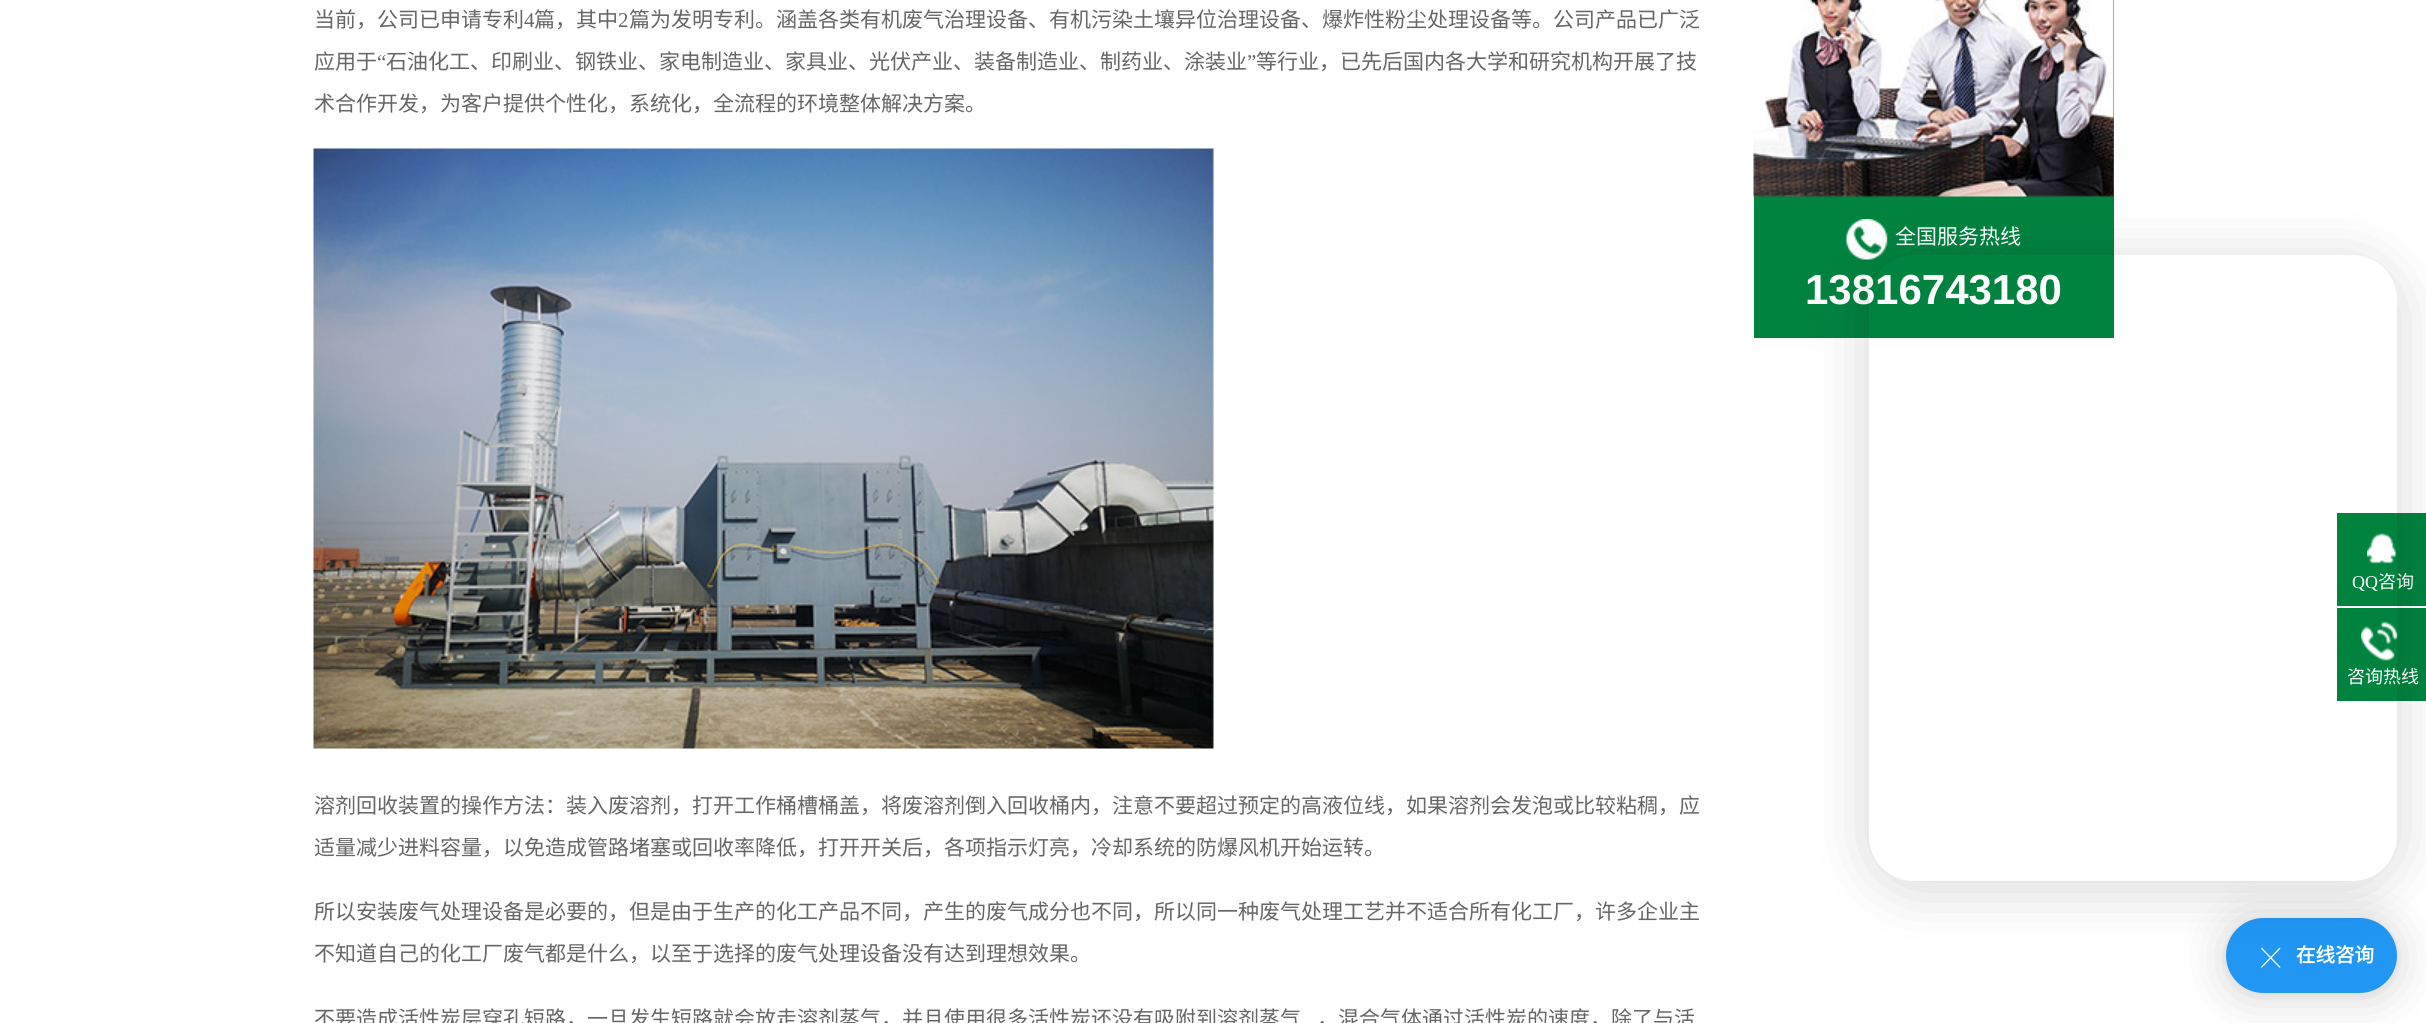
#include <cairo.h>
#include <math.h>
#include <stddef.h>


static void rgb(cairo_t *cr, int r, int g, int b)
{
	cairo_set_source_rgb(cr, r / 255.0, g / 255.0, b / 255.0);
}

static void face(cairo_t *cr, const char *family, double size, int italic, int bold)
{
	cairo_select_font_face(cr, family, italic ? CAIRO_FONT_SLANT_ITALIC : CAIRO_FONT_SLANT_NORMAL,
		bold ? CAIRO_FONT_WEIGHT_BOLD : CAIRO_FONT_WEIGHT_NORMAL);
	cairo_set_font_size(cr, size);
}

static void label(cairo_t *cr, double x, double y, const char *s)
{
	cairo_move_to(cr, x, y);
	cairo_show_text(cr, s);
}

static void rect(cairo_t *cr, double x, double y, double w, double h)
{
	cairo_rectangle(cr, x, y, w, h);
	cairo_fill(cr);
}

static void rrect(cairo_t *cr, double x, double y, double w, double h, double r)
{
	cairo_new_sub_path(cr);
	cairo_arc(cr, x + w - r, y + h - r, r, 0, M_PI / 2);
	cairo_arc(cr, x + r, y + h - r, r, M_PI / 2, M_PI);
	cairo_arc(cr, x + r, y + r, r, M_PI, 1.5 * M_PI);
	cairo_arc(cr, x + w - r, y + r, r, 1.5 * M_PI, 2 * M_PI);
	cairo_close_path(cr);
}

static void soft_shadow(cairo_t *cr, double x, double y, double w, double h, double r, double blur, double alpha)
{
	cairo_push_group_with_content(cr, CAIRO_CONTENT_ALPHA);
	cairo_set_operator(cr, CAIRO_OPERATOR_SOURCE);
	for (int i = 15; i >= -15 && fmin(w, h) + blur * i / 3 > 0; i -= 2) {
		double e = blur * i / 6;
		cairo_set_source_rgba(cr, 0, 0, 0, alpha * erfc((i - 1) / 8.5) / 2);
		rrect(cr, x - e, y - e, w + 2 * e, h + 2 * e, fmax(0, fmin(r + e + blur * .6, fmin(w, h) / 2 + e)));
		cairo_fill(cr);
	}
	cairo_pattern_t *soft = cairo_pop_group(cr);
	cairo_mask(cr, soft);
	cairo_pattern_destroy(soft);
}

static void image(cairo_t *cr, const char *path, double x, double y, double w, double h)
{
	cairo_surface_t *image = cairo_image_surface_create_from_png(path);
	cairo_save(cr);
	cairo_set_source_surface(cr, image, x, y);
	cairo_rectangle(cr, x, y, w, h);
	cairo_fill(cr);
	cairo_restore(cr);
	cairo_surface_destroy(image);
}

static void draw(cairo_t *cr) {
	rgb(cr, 255, 255, 255);
	cairo_paint(cr);
	face(cr, "Noto Sans CJK SC", 21, 0, 0);
	rgb(cr, 102, 102, 102);
	label(cr, 314, 27, "当前，公司已申请专利");
	face(cr, "Liberation Serif", 21, 0, 0);
	label(cr, 524, 27, "4");
	face(cr, "Noto Sans CJK SC", 21, 0, 0);
	label(cr, 534, 27, "篇，其中");
	face(cr, "Liberation Serif", 21, 0, 0);
	label(cr, 618, 27, "2");
	face(cr, "Noto Sans CJK SC", 21, 0, 0);
	label(cr, 629, 27, "篇为发明专利。涵盖各类有机废气治理设备、有机污染土壤异位治理设备、爆炸性粉尘处理设备等。公司产品已广泛");
	label(cr, 314, 69, "应用于");
	face(cr, "Liberation Serif", 21, 0, 0);
	label(cr, 377, 69, "“");
	face(cr, "Noto Sans CJK SC", 21, 0, 0);
	label(cr, 386, 69, "石油化工、印刷业、钢铁业、家电制造业、家具业、光伏产业、装备制造业、制药业、涂装业");
	face(cr, "Liberation Serif", 21, 0, 0);
	label(cr, 1247, 69, "”");
	face(cr, "Noto Sans CJK SC", 21, 0, 0);
	label(cr, 1256, 69, "等行业，已先后国内各大学和研究机构开展了技");
	label(cr, 314, 111, "术合作开发，为客户提供个性化，系统化，全流程的环境整体解决方案。");
	image(cr, "image0.png", 313, 148, 901, 601);
	label(cr, 314, 813, "溶剂回收装置的操作方法：装入废溶剂，打开工作桶槽桶盖，将废溶剂倒入回收桶内，注意不要超过预定的高液位线，如果溶剂会发泡或比较粘稠，应");
	label(cr, 314, 855, "适量减少进料容量，以免造成管路堵塞或回收率降低，打开开关后，各项指示灯亮，冷却系统的防爆风机开始运转。");
	label(cr, 314, 919, "所以安装废气处理设备是必要的，但是由于生产的化工产品不同，产生的废气成分也不同，所以同一种废气处理工艺并不适合所有化工厂，许多企业主");
	label(cr, 314, 961, "不知道自己的化工厂废气都是什么，以至于选择的废气处理设备没有达到理想效果。");
	label(cr, 314, 1026, "不要造成活性炭层穿孔短路，一旦发生短路就会放走溶剂蒸气，并且使用很多活性炭还没有吸附到溶剂蒸气");
	label(cr, 1317, 1026, "，混合气体通过活性炭的速度，除了与活");
	rgb(cr, 0, 131, 63);
	rect(cr, 1754, 0, 360, 338);
	image(cr, "image1.png", 1753, 0, 361, 197);
	image(cr, "image2.png", 1846, 219, 42, 41);
	rgb(cr, 255, 255, 255);
	label(cr, 1895, 244, "全国服务热线");
	face(cr, "Liberation Sans", 42, 0, 1);
	label(cr, 1805, 304, "13816743180");
	rgb(cr, 0, 131, 63);
	rect(cr, 2337, 513, 89, 93);
	image(cr, "image3.png", 2367, 533, 29, 31);
	face(cr, "Liberation Serif", 18, 0, 0);
	rgb(cr, 255, 255, 255);
	label(cr, 2352, 588, "QQ");
	face(cr, "Noto Sans CJK SC", 18, 0, 0);
	label(cr, 2378, 588, "咨询");
	rgb(cr, 0, 131, 63);
	rect(cr, 2337, 608, 89, 93);
	image(cr, "image4.png", 2361, 621, 37, 40);
	rgb(cr, 255, 255, 255);
	label(cr, 2347, 683, "咨询热线");
	rgb(cr, 0, 0, 0);
	soft_shadow(cr, 2226, 921, 171, 75, 37.5, 24, 0.16);
	soft_shadow(cr, 2226, 920, 171, 75, 37.5, 4.5, 0.06);
	rgb(cr, 33, 150, 243);
	rrect(cr, 2226, 918, 171, 75, 37.5);
	cairo_fill(cr);
	image(cr, "image5.png", 2261, 947, 20, 21);
	cairo_save(cr);
	cairo_set_fill_rule(cr, CAIRO_FILL_RULE_EVEN_ODD);
	cairo_new_path(cr);
	cairo_move_to(cr, 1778, 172);
	cairo_line_to(cr, 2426, 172);
	cairo_line_to(cr, 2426, 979);
	cairo_line_to(cr, 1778, 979);
	cairo_close_path(cr);
	cairo_move_to(cr, 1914, 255);
	cairo_line_to(cr, 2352, 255);
	cairo_curve_to(cr, 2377, 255, 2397, 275, 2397, 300);
	cairo_line_to(cr, 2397, 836);
	cairo_curve_to(cr, 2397, 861, 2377, 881, 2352, 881);
	cairo_line_to(cr, 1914, 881);
	cairo_curve_to(cr, 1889, 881, 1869, 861, 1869, 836);
	cairo_line_to(cr, 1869, 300);
	cairo_curve_to(cr, 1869, 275, 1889, 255, 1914, 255);
	cairo_close_path(cr);
	cairo_clip(cr);
	rgb(cr, 0, 0, 0);
	soft_shadow(cr, 1869, 263, 528, 625, 45, 30, 0.16);
	cairo_restore(cr);
	face(cr, "Noto Sans CJK SC", 19.5, 0, 1);
	rgb(cr, 255, 255, 255);
	label(cr, 2296, 962, "在线咨询");
}

int main(void) {
	cairo_surface_t *surface = cairo_image_surface_create(CAIRO_FORMAT_RGB24, 2426, 1023);
	cairo_t *cr = cairo_create(surface);
	cairo_font_options_t *options = cairo_font_options_create();
	cairo_font_options_set_hint_metrics(options, CAIRO_HINT_METRICS_OFF);
	cairo_font_options_set_hint_style(options, CAIRO_HINT_STYLE_NONE);
	cairo_set_font_options(cr, options);
	cairo_set_miter_limit(cr, 4);
	draw(cr);
	cairo_surface_write_to_png(surface, "render.png");
	cairo_font_options_destroy(options);
	cairo_destroy(cr);
	cairo_surface_destroy(surface);
	return 0;
}
